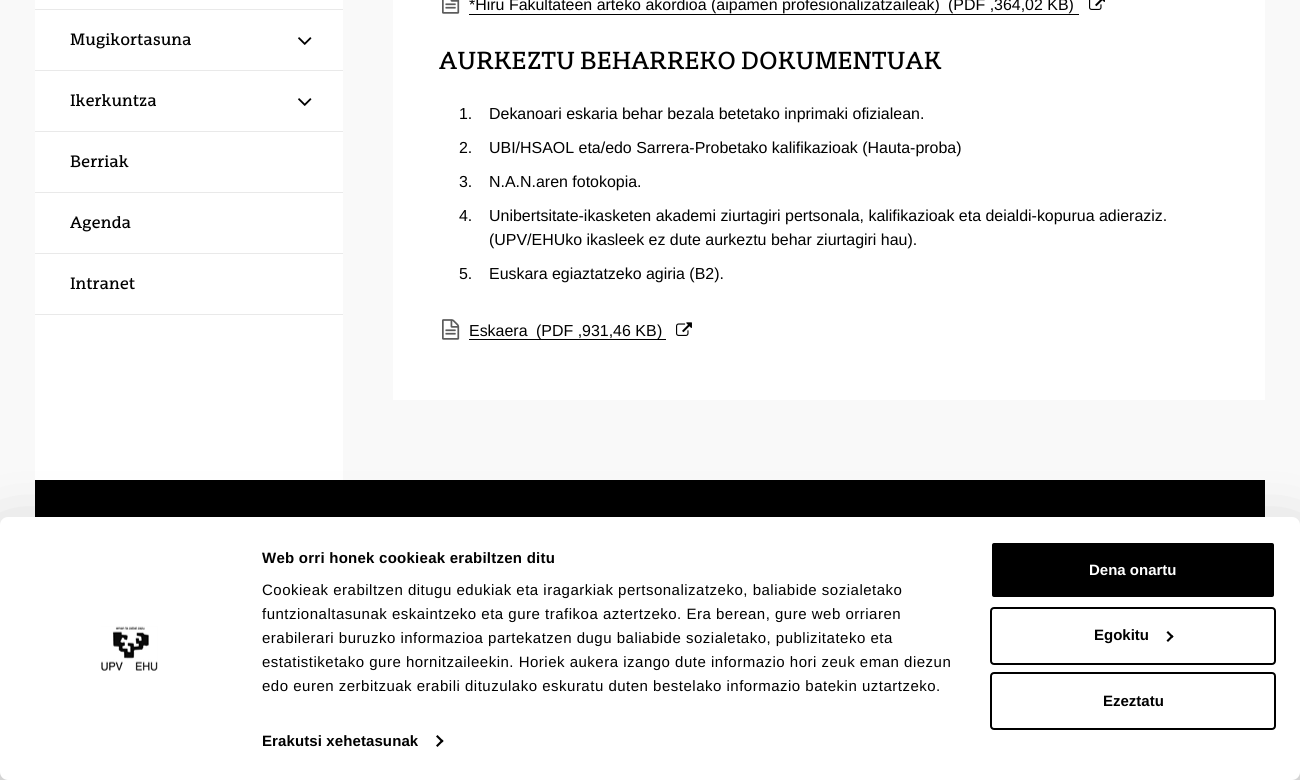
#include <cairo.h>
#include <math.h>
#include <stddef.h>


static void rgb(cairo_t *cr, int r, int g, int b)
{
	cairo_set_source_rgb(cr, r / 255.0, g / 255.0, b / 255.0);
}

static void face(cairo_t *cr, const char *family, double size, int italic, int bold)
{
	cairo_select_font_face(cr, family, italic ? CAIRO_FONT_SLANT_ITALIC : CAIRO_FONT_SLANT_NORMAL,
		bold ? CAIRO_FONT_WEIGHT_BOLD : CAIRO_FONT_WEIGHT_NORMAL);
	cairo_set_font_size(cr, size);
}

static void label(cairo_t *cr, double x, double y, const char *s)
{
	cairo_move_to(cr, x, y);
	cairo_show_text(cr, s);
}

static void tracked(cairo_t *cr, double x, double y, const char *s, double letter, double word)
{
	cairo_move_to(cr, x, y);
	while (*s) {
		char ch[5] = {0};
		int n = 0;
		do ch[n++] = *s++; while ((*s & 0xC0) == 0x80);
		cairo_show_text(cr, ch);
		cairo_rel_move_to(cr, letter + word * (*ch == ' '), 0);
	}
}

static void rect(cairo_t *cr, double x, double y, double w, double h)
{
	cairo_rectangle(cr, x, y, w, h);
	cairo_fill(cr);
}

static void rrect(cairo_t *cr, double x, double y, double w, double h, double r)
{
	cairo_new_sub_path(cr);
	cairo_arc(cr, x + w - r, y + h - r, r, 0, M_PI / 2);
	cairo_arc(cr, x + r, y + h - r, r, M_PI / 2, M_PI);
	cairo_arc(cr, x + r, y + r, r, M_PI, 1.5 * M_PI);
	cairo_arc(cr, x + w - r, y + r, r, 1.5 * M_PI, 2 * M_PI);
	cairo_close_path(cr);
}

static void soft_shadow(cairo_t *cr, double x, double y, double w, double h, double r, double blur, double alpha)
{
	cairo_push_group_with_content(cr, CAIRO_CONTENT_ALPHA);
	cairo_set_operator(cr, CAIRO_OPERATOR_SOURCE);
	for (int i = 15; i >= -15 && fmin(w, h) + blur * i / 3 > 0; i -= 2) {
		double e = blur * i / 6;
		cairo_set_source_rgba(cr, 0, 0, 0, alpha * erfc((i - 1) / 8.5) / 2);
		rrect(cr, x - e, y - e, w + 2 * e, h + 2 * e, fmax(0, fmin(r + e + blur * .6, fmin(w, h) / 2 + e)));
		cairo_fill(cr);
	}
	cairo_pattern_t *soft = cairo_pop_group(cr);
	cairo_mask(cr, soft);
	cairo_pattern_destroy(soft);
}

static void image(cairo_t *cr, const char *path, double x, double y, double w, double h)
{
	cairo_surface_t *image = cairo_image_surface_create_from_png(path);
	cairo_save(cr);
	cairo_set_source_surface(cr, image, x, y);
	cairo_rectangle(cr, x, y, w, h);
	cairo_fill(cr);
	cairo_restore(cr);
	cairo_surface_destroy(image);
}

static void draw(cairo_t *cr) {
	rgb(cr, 249, 249, 249);
	cairo_paint(cr);
	rgb(cr, 255, 255, 255);
	rect(cr, 35, 0, 308, 480);
	rgb(cr, 233, 233, 233);
	rect(cr, 35, 9, 308, 1);
	rect(cr, 35, 70, 308, 1);
	face(cr, "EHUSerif", 15.95, 0, 0);
	rgb(cr, 0, 0, 0);
	label(cr, 70, 45, "Mugikortasuna");
	image(cr, "image0.png", 298, 37, 14, 8);
	rgb(cr, 233, 233, 233);
	rect(cr, 35, 131, 308, 1);
	rgb(cr, 0, 0, 0);
	label(cr, 70, 106, "Ikerkuntza");
	image(cr, "image0.png", 298, 98, 14, 8);
	rgb(cr, 233, 233, 233);
	rect(cr, 35, 192, 308, 1);
	rgb(cr, 0, 0, 0);
	label(cr, 70, 167, "Berriak");
	rgb(cr, 233, 233, 233);
	rect(cr, 35, 253, 308, 1);
	rgb(cr, 0, 0, 0);
	label(cr, 70, 228, "Agenda");
	rgb(cr, 233, 233, 233);
	rect(cr, 35, 314, 308, 1);
	rgb(cr, 0, 0, 0);
	label(cr, 70, 289, "Intranet");
	rgb(cr, 255, 255, 255);
	rect(cr, 393, 0, 872, 400);
	image(cr, "image1.png", 442, 0, 18, 14);
	face(cr, "Liberation Sans", 15.95, 0, 0);
	rgb(cr, 0, 0, 0);
	label(cr, 469, 10, "*Hiru Fakultateen arteko akordioa (aipamen profesionalizatzaileak)");
	rect(cr, 469, 14, 485, 1);
	label(cr, 948, 10, "(PDF ,364,02 KB)");
	cairo_new_path(cr);
	cairo_move_to(cr, 953.5, 14.5);
	cairo_line_to(cr, 990, 14.5);
	cairo_set_line_width(cr, 1);
	cairo_set_dash(cr, (double[]){1, 1}, 2, 0);
	cairo_stroke(cr);
	rect(cr, 954, 14, 94, 1);
	cairo_new_path(cr);
	cairo_move_to(cr, 1047.5, 14.5);
	cairo_line_to(cr, 1069, 14.5);
	cairo_stroke(cr);
	rect(cr, 1048, 14, 31, 1);
	image(cr, "image2.png", 1089, 0, 16, 10);
	face(cr, "EHUSerif", 23.9, 0, 0);
	label(cr, 439, 69, "AURKEZTU BEHARREKO DOKUMENTUAK");
	face(cr, "Liberation Sans", 15.95, 0, 0);
	label(cr, 459, 119, "1.");
	label(cr, 489, 119, "Dekanoari eskaria behar bezala betetako inprimaki ofizialean.");
	label(cr, 459, 153, "2.");
	label(cr, 489, 153, "UBI/HSAOL eta/edo Sarrera-Probetako kalifikazioak (Hauta-proba)");
	label(cr, 459, 187, "3.");
	label(cr, 489, 187, "N.A.N.aren fotokopia.");
	label(cr, 459, 221, "4.");
	label(cr, 489, 221, "Unibertsitate-ikasketen akademi ziurtagiri pertsonala, kalifikazioak eta deialdi-kopurua adieraziz.");
	label(cr, 489, 245, "(UPV/EHUko ikasleek ez dute aurkeztu behar ziurtagiri hau).");
	label(cr, 459, 279, "5.");
	label(cr, 489, 279, "Euskara egiaztatzeko agiria (B2).");
	image(cr, "image3.png", 442, 319, 18, 21);
	label(cr, 469, 336, "Eskaera");
	rect(cr, 469, 339, 72, 1);
	label(cr, 536, 336, "(PDF ,931,46 KB");
	rect(cr, 541, 339, 125, 1);
	label(cr, 657, 336, ")");
	image(cr, "image4.png", 676, 322, 16, 14);
	rect(cr, 35, 480, 1230, 37);
	rgb(cr, 0, 0, 0);
	soft_shadow(cr, 0, 547, 1300, 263, 8, 35, 0.3);
	rgb(cr, 255, 255, 255);
	rrect(cr, 0, 517, 1300, 263, 8);
	cairo_fill(cr);
	image(cr, "image5.png", 101, 626, 57, 45);
	face(cr, "Liberation Sans", 15, 0, 1);
	rgb(cr, 0, 0, 0);
	tracked(cr, 262, 563, "Web orri honek cookieak erabiltzen ditu", 0.25, 0);
	face(cr, "Liberation Sans", 15, 0, 0);
	tracked(cr, 262, 595, "Cookieak erabiltzen ditugu edukiak eta iragarkiak pertsonalizatzeko, baliabide sozialetako", 0.5, 0);
	tracked(cr, 262, 619, "funtzionaltasunak eskaintzeko eta gure trafikoa aztertzeko. Era berean, gure web orriaren", 0.5, 0);
	tracked(cr, 262, 643, "erabilerari buruzko informazioa partekatzen dugu baliabide sozialetako, publizitateko eta", 0.5, 0);
	tracked(cr, 262, 667, "estatistiketako gure hornitzaileekin. Horiek aukera izango dute informazio hori zeuk eman diezun", 0.5, 0);
	tracked(cr, 262, 691, "edo euren zerbitzuak erabili dituzulako eskuratu duten bestelako informazio batekin uztartzeko.", 0.5, 0);
	face(cr, "Liberation Sans", 15, 0, 1);
	tracked(cr, 262, 746, "Erakutsi xehetasunak", 0.1, 0);
	cairo_new_path(cr);
	cairo_move_to(cr, 437.5, 735);
	cairo_line_to(cr, 443.5, 741);
	cairo_line_to(cr, 442, 742.5);
	cairo_line_to(cr, 436, 736.5);
	cairo_close_path(cr);
	cairo_fill(cr);
	cairo_new_path(cr);
	cairo_move_to(cr, 442, 739.5);
	cairo_line_to(cr, 443.5, 741);
	cairo_line_to(cr, 437.5, 747);
	cairo_line_to(cr, 436, 745.5);
	cairo_close_path(cr);
	cairo_fill(cr);
	rrect(cr, 991, 542, 284, 56, 3);
	cairo_fill_preserve(cr);
	rgb(cr, 255, 255, 255);
	cairo_set_line_width(cr, 2);
	cairo_set_dash(cr, NULL, 0, 0);
	cairo_stroke(cr);
	label(cr, 1089, 575, "Dena onartu");
	rrect(cr, 991, 608, 284, 56, 3);
	rgb(cr, 0, 0, 0);
	cairo_stroke(cr);
	label(cr, 1094, 640, "Egokitu");
	cairo_new_path(cr);
	cairo_move_to(cr, 1168, 631);
	cairo_line_to(cr, 1173.5, 636.5);
	cairo_line_to(cr, 1172, 638);
	cairo_line_to(cr, 1166.5, 632.5);
	cairo_close_path(cr);
	cairo_fill(cr);
	cairo_new_path(cr);
	cairo_move_to(cr, 1172, 635);
	cairo_line_to(cr, 1173.5, 636.5);
	cairo_line_to(cr, 1168, 642);
	cairo_line_to(cr, 1166.5, 640.5);
	cairo_close_path(cr);
	cairo_fill(cr);
	rrect(cr, 991, 673, 284, 56, 3);
	cairo_stroke(cr);
	label(cr, 1103, 706, "Ezeztatu");
}

int main(void) {
	cairo_surface_t *surface = cairo_image_surface_create(CAIRO_FORMAT_RGB24, 1300, 780);
	cairo_t *cr = cairo_create(surface);
	cairo_font_options_t *options = cairo_font_options_create();
	cairo_font_options_set_hint_metrics(options, CAIRO_HINT_METRICS_OFF);
	cairo_font_options_set_hint_style(options, CAIRO_HINT_STYLE_NONE);
	cairo_set_font_options(cr, options);
	cairo_set_miter_limit(cr, 4);
	draw(cr);
	cairo_surface_write_to_png(surface, "render.png");
	cairo_font_options_destroy(options);
	cairo_destroy(cr);
	cairo_surface_destroy(surface);
	return 0;
}
